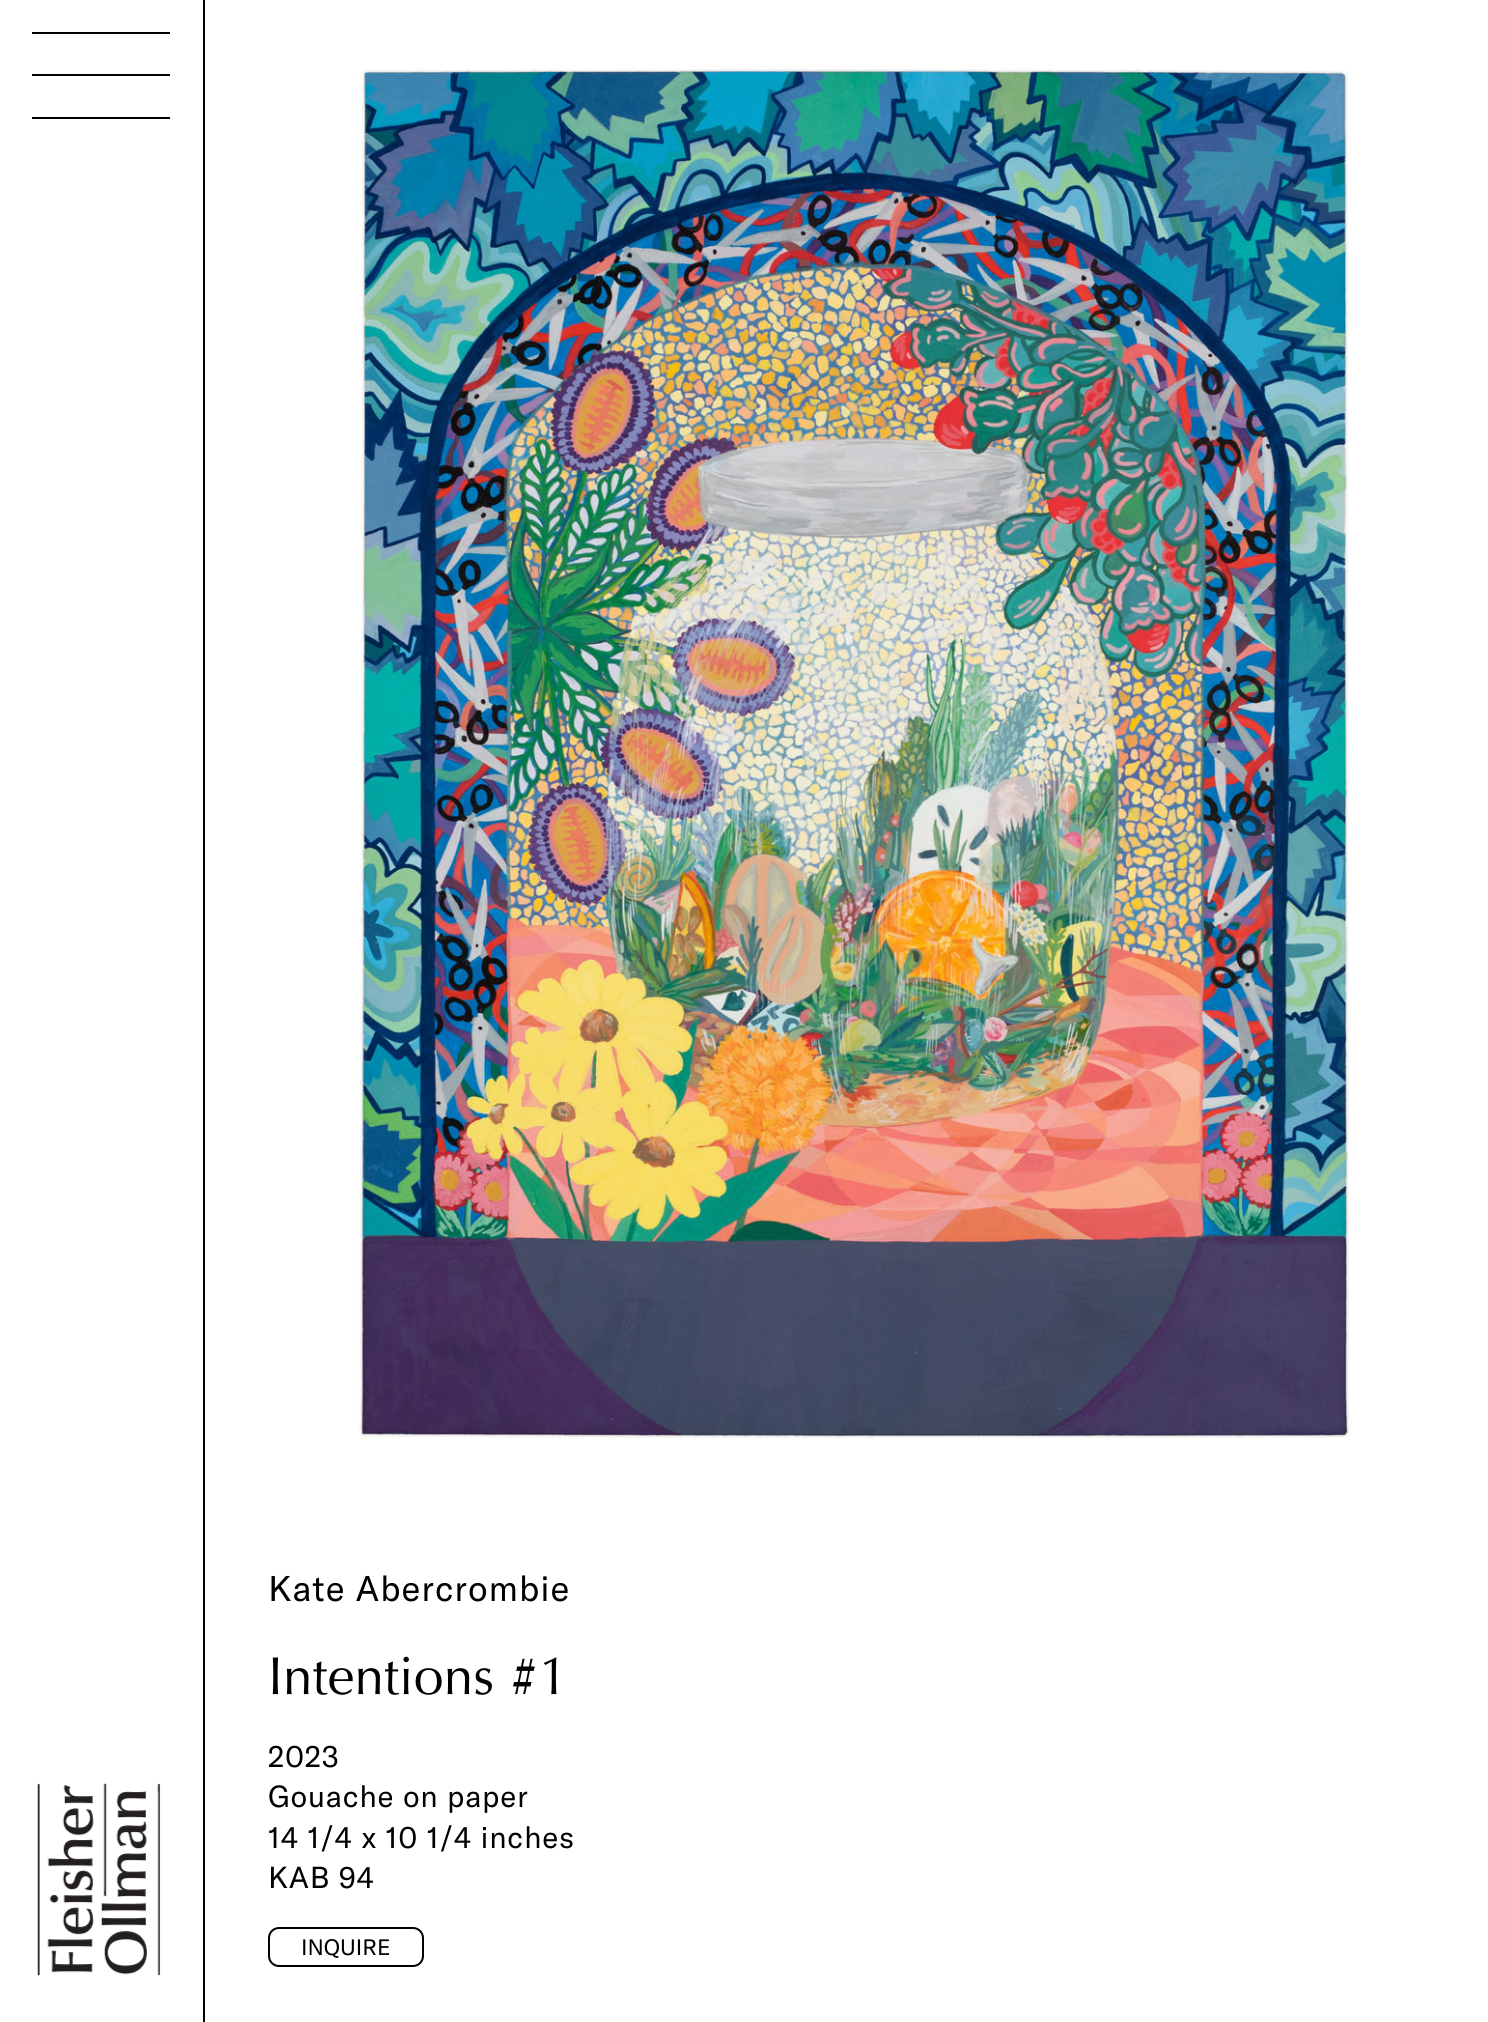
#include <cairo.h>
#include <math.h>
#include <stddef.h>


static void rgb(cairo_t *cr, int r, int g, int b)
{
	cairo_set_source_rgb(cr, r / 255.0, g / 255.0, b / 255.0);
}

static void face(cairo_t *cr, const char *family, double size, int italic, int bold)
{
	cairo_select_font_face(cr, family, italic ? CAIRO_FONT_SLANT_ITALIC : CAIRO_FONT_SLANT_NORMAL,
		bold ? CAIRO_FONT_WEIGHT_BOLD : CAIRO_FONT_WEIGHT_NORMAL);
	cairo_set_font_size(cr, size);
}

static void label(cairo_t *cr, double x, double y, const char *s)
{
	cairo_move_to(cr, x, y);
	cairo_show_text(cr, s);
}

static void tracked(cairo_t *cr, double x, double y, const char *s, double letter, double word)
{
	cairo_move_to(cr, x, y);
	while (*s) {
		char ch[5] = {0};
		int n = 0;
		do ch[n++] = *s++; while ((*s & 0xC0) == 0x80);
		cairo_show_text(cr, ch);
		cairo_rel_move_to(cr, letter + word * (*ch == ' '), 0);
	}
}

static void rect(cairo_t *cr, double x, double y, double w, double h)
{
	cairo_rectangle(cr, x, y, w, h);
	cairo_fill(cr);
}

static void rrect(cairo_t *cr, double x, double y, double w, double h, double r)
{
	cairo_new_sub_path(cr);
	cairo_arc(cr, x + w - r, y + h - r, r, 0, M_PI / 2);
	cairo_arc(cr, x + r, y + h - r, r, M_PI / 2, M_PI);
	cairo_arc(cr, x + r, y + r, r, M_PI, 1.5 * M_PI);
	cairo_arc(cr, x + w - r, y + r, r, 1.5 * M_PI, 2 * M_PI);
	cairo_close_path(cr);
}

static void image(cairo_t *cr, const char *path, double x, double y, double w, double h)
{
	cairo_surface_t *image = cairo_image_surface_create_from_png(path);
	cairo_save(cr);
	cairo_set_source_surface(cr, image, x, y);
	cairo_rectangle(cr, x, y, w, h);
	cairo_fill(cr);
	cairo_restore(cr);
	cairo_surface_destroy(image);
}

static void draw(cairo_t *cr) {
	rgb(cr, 255, 255, 255);
	cairo_paint(cr);
	rgb(cr, 0, 0, 0);
	rect(cr, 32, 117, 138, 2);
	rect(cr, 32, 32, 138, 2);
	rect(cr, 32, 74, 138, 2);
	rect(cr, 203, 0, 2, 2022);
	image(cr, "image0.png", 359, 69, 990, 1369);
	face(cr, "GT America", 35.25, 0, 0);
	tracked(cr, 268, 1601, "Kate Abercrombie", 0.9, 0);
	face(cr, "Optima", 53.5, 0, 0);
	label(cr, 268, 1694, "Intentions #1");
	face(cr, "GT America", 30, 0, 0);
	tracked(cr, 268, 1767, "2023", 0.75, 0);
	tracked(cr, 268, 1807, "Gouache on paper", 0.75, 0);
	tracked(cr, 268, 1848, "14 1/4 x 10 1/4 inches", 0.75, 0);
	tracked(cr, 268, 1888, "KAB 94", 0.75, 0);
	rrect(cr, 269, 1928, 154, 38, 10);
	cairo_stroke(cr);
	face(cr, "GT America", 22, 0, 0);
	label(cr, 301, 1955, "INQUIRE");
	image(cr, "image1.png", 37, 1783, 124, 194);
}

int main(void) {
	cairo_surface_t *surface = cairo_image_surface_create(CAIRO_FORMAT_RGB24, 1488, 2022);
	cairo_t *cr = cairo_create(surface);
	cairo_font_options_t *options = cairo_font_options_create();
	cairo_font_options_set_hint_metrics(options, CAIRO_HINT_METRICS_OFF);
	cairo_font_options_set_hint_style(options, CAIRO_HINT_STYLE_NONE);
	cairo_set_font_options(cr, options);
	cairo_set_miter_limit(cr, 4);
	draw(cr);
	cairo_surface_write_to_png(surface, "render.png");
	cairo_font_options_destroy(options);
	cairo_destroy(cr);
	cairo_surface_destroy(surface);
	return 0;
}
